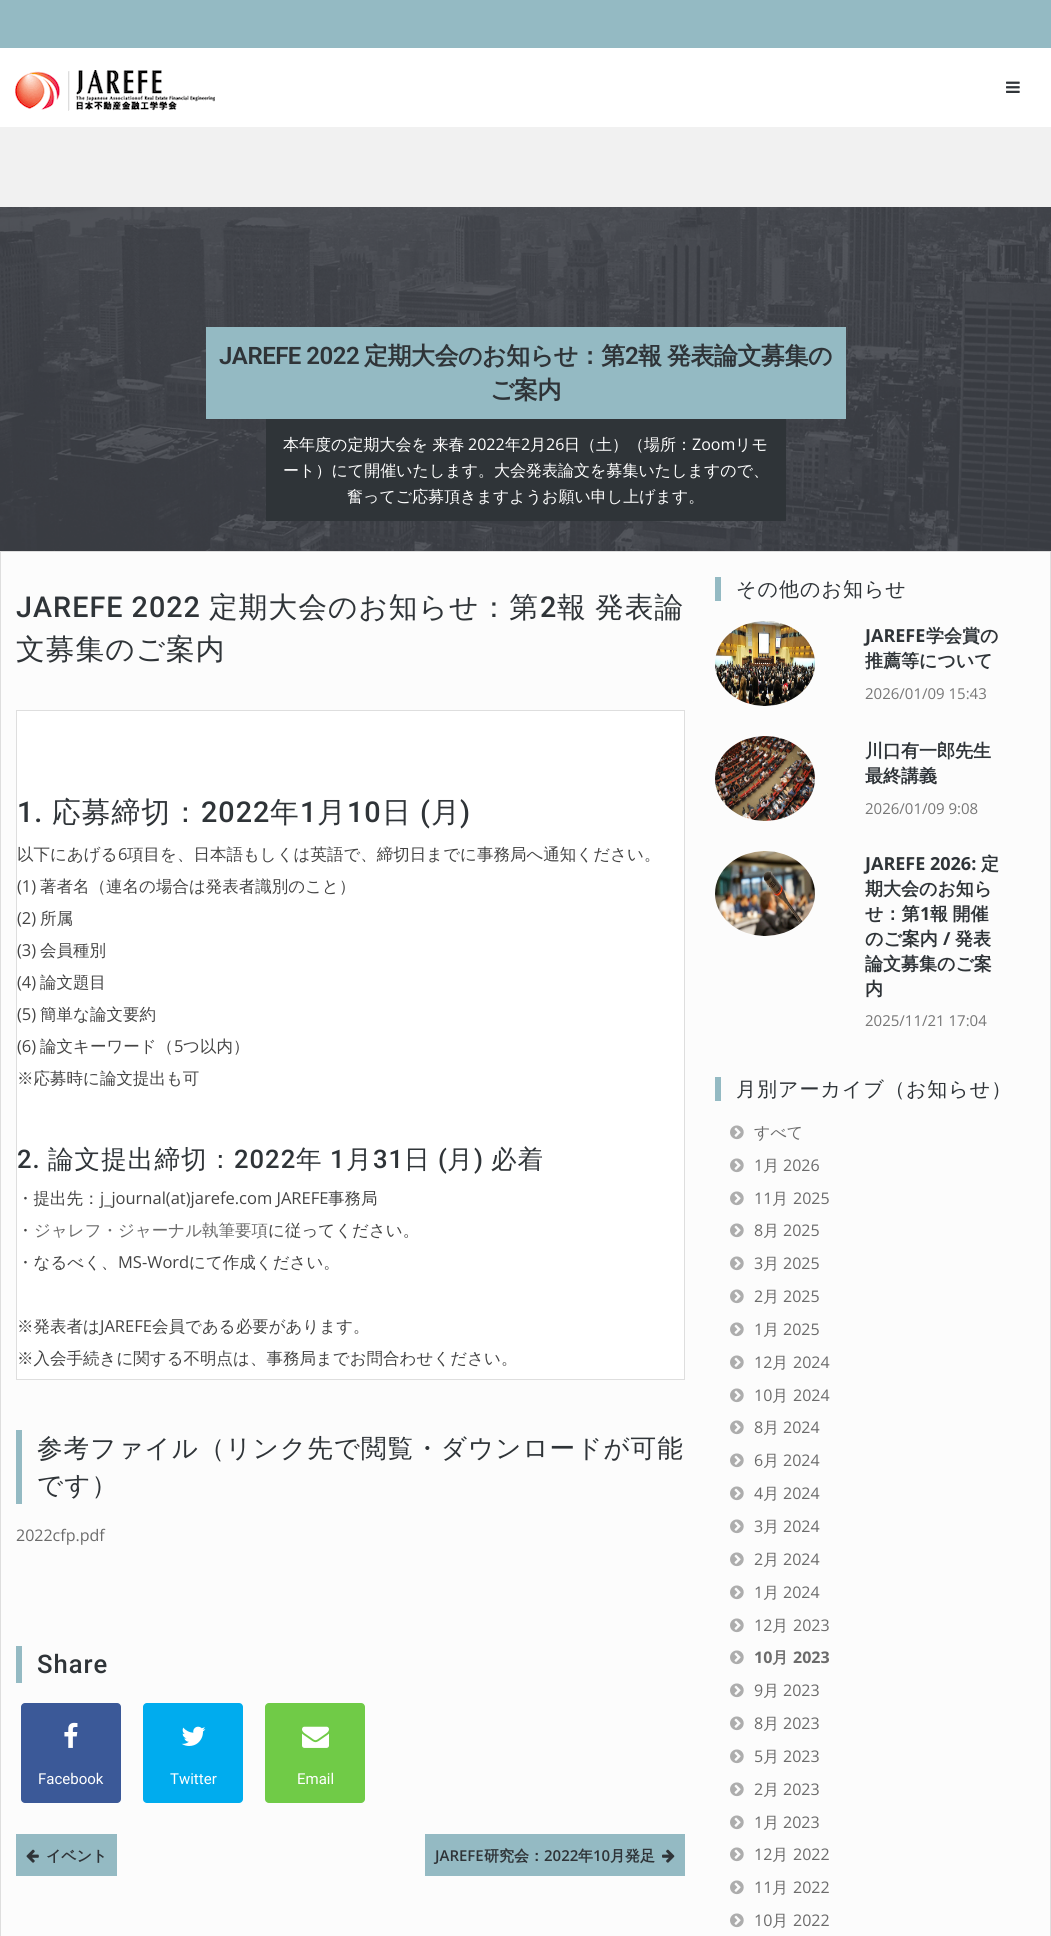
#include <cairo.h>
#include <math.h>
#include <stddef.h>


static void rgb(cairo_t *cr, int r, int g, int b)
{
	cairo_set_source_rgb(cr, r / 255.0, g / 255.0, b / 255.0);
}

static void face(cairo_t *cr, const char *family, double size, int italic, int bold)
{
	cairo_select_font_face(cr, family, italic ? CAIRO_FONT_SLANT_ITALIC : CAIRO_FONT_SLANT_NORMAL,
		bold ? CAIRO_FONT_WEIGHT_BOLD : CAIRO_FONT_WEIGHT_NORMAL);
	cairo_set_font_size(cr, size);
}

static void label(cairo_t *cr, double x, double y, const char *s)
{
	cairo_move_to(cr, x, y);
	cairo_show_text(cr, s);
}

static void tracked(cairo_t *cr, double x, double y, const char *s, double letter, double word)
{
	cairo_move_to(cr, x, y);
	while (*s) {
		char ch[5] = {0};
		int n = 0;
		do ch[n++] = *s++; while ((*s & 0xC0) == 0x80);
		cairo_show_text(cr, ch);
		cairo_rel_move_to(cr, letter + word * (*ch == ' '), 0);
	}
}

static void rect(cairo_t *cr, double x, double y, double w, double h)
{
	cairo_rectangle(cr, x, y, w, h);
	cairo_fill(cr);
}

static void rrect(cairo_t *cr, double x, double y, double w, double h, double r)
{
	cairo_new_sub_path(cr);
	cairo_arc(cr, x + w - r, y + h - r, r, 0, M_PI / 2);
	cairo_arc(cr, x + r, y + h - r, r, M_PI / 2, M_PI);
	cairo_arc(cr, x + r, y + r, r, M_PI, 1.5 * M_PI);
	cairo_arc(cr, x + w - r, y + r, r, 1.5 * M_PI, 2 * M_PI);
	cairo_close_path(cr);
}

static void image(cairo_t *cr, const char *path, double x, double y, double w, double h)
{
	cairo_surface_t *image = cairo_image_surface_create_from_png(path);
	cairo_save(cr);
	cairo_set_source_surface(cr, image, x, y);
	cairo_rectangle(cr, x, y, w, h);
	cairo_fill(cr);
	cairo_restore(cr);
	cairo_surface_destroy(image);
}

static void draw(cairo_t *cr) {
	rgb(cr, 241, 241, 241);
	cairo_paint(cr);
	rgb(cr, 148, 186, 195);
	rect(cr, 0, 0, 1051, 48);
	rgb(cr, 255, 255, 255);
	rect(cr, 0, 48, 1051, 79);
	image(cr, "image0.png", 15, 70, 200, 41);
	image(cr, "image1.png", 1006, 81, 14, 12);
	image(cr, "image2.png", 0, 207, 1051, 344);
	rgb(cr, 148, 186, 195);
	rect(cr, 206, 327, 640, 92);
	face(cr, "Roboto SemiBold", 24, 0, 0);
	rgb(cr, 47, 52, 56);
	tracked(cr, 219, 364, "JAREFE 2022", -0.5, 0);
	face(cr, "WenQuanYi Zen Hei", 24, 0, 1);
	tracked(cr, 364, 364, "定期大会のお知らせ：第", -0.5, 0);
	face(cr, "Roboto SemiBold", 24, 0, 0);
	tracked(cr, 625, 364, "2", -0.5, 0);
	face(cr, "WenQuanYi Zen Hei", 24, 0, 1);
	tracked(cr, 638, 364, "報", -0.5, 0);
	tracked(cr, 667, 364, "発表論文募集の", -0.5, 0);
	tracked(cr, 490, 398, "ご案内", -0.5, 0);
	rect(cr, 266, 419, 520, 102);
	face(cr, "WenQuanYi Zen Hei Medium", 16, 0, 0);
	rgb(cr, 255, 255, 255);
	label(cr, 283, 450, "本年度の定期大会を 来春");
	face(cr, "Open Sans", 16, 0, 0);
	label(cr, 468, 450, "2022");
	face(cr, "WenQuanYi Zen Hei Medium", 16, 0, 0);
	label(cr, 505, 450, "年");
	face(cr, "Open Sans", 16, 0, 0);
	label(cr, 521, 450, "2");
	face(cr, "WenQuanYi Zen Hei Medium", 16, 0, 0);
	label(cr, 530, 450, "月");
	face(cr, "Open Sans", 16, 0, 0);
	label(cr, 546, 450, "26");
	face(cr, "WenQuanYi Zen Hei Medium", 16, 0, 0);
	label(cr, 564, 450, "日（土）（場所：");
	face(cr, "Open Sans", 16, 0, 0);
	label(cr, 692, 450, "Zoom");
	face(cr, "WenQuanYi Zen Hei Medium", 16, 0, 0);
	label(cr, 735, 450, "リモ");
	label(cr, 283, 476, "ート）にて開催いたします。大会発表論文を募集いたしますので、");
	label(cr, 347, 502, "奮ってご応募頂きますようお願い申し上げます。");
	cairo_rectangle(cr, 0.5, 551.5, 1050, 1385);
	rgb(cr, 222, 222, 222);
	cairo_set_line_width(cr, 1);
	cairo_stroke(cr);
	rgb(cr, 252, 252, 252);
	rect(cr, 1, 552, 1049, 1384);
	face(cr, "Roboto Medium", 28.75, 0, 0);
	rgb(cr, 47, 52, 56);
	tracked(cr, 16, 617, "JAREFE 2022", 1, 0);
	face(cr, "WenQuanYi Zen Hei Medium", 28.75, 0, 0);
	tracked(cr, 209, 617, "定期大会のお知らせ：第", 1, 0);
	face(cr, "Roboto Medium", 28.75, 0, 0);
	tracked(cr, 540, 617, "2", 1, 0);
	face(cr, "WenQuanYi Zen Hei Medium", 28.75, 0, 0);
	tracked(cr, 557, 617, "報", 1, 0);
	tracked(cr, 595, 617, "発表論", 1, 0);
	tracked(cr, 16, 659, "文募集のご案内", 1, 0);
	rgb(cr, 255, 255, 255);
	cairo_rectangle(cr, 16.5, 710.5, 668, 669);
	cairo_fill_preserve(cr);
	rgb(cr, 222, 222, 222);
	cairo_stroke(cr);
	face(cr, "Roboto Medium", 28.75, 0, 0);
	rgb(cr, 47, 52, 56);
	tracked(cr, 17, 822, "1.", 1, 0);
	face(cr, "WenQuanYi Zen Hei Medium", 28.75, 0, 0);
	tracked(cr, 52, 822, "応募締切：", 1, 0);
	face(cr, "Roboto Medium", 28.75, 0, 0);
	tracked(cr, 201, 822, "2022", 1, 0);
	face(cr, "WenQuanYi Zen Hei Medium", 28.75, 0, 0);
	tracked(cr, 270, 822, "年", 1, 0);
	face(cr, "Roboto Medium", 28.75, 0, 0);
	tracked(cr, 300, 822, "1", 1, 0);
	face(cr, "WenQuanYi Zen Hei Medium", 28.75, 0, 0);
	tracked(cr, 317, 822, "月", 1, 0);
	face(cr, "Roboto Medium", 28.75, 0, 0);
	tracked(cr, 347, 822, "10", 1, 0);
	face(cr, "WenQuanYi Zen Hei Medium", 28.75, 0, 0);
	tracked(cr, 382, 822, "日", 1, 0);
	face(cr, "Roboto Medium", 28.75, 0, 0);
	tracked(cr, 420, 822, "(", 1, 0);
	face(cr, "WenQuanYi Zen Hei Medium", 28.75, 0, 0);
	tracked(cr, 431, 822, "月", 1, 0);
	face(cr, "Roboto Medium", 28.75, 0, 0);
	tracked(cr, 460, 822, ")", 1, 0);
	face(cr, "WenQuanYi Zen Hei Medium", 16.5, 0, 0);
	rgb(cr, 68, 68, 68);
	label(cr, 17, 860, "以下にあげる");
	face(cr, "Open Sans", 16.5, 0, 0);
	label(cr, 118, 860, "6");
	face(cr, "WenQuanYi Zen Hei Medium", 16.5, 0, 0);
	label(cr, 127, 860, "項目を、日本語もしくは英語で、締切日までに事務局へ通知ください。");
	face(cr, "Open Sans", 16.5, 0, 0);
	label(cr, 17, 892, "(1)");
	face(cr, "WenQuanYi Zen Hei Medium", 16.5, 0, 0);
	label(cr, 40, 892, "著者名（連名の場合は発表者識別のこと）");
	face(cr, "Open Sans", 16.5, 0, 0);
	label(cr, 17, 924, "(2)");
	face(cr, "WenQuanYi Zen Hei Medium", 16.5, 0, 0);
	label(cr, 40, 924, "所属");
	face(cr, "Open Sans", 16.5, 0, 0);
	label(cr, 17, 956, "(3)");
	face(cr, "WenQuanYi Zen Hei Medium", 16.5, 0, 0);
	label(cr, 40, 956, "会員種別");
	face(cr, "Open Sans", 16.5, 0, 0);
	label(cr, 17, 988, "(4)");
	face(cr, "WenQuanYi Zen Hei Medium", 16.5, 0, 0);
	label(cr, 40, 988, "論文題目");
	face(cr, "Open Sans", 16.5, 0, 0);
	label(cr, 17, 1020, "(5)");
	face(cr, "WenQuanYi Zen Hei Medium", 16.5, 0, 0);
	label(cr, 40, 1020, "簡単な論文要約");
	face(cr, "Open Sans", 16.5, 0, 0);
	label(cr, 17, 1052, "(6)");
	face(cr, "WenQuanYi Zen Hei Medium", 16.5, 0, 0);
	label(cr, 40, 1052, "論文キーワード（");
	face(cr, "Open Sans", 16.5, 0, 0);
	label(cr, 174, 1052, "5");
	face(cr, "WenQuanYi Zen Hei Medium", 16.5, 0, 0);
	label(cr, 183, 1052, "つ以内）");
	label(cr, 17, 1084, "※応募時に論文提出も可");
	face(cr, "Roboto Medium", 25.6, 0, 0);
	rgb(cr, 47, 52, 56);
	tracked(cr, 17, 1168, "2.", 1, 0);
	face(cr, "WenQuanYi Zen Hei Medium", 25.6, 0, 0);
	tracked(cr, 48, 1168, "論文提出締切：", 1, 0);
	face(cr, "Roboto Medium", 25.6, 0, 0);
	tracked(cr, 234, 1168, "2022", 1, 0);
	face(cr, "WenQuanYi Zen Hei Medium", 25.6, 0, 0);
	tracked(cr, 296, 1168, "年", 1, 0);
	face(cr, "Roboto Medium", 25.6, 0, 0);
	tracked(cr, 330, 1168, "1", 1, 0);
	face(cr, "WenQuanYi Zen Hei Medium", 25.6, 0, 0);
	tracked(cr, 346, 1168, "月", 1, 0);
	face(cr, "Roboto Medium", 25.6, 0, 0);
	tracked(cr, 373, 1168, "31", 1, 0);
	face(cr, "WenQuanYi Zen Hei Medium", 25.6, 0, 0);
	tracked(cr, 404, 1168, "日", 1, 0);
	face(cr, "Roboto Medium", 25.6, 0, 0);
	tracked(cr, 438, 1168, "(", 1, 0);
	face(cr, "WenQuanYi Zen Hei Medium", 25.6, 0, 0);
	tracked(cr, 447, 1168, "月", 1, 0);
	face(cr, "Roboto Medium", 25.6, 0, 0);
	tracked(cr, 474, 1168, ")", 1, 0);
	face(cr, "WenQuanYi Zen Hei Medium", 25.6, 0, 0);
	tracked(cr, 491, 1168, "必着", 1, 0);
	face(cr, "WenQuanYi Zen Hei Medium", 16.5, 0, 0);
	rgb(cr, 68, 68, 68);
	label(cr, 17, 1204, "・提出先：");
	face(cr, "Open Sans", 16.5, 0, 0);
	label(cr, 100, 1204, "j_journal(at)jarefe.com JAREFE");
	face(cr, "WenQuanYi Zen Hei Medium", 16.5, 0, 0);
	label(cr, 328, 1204, "事務局");
	label(cr, 17, 1236, "・");
	rgb(cr, 107, 107, 107);
	label(cr, 34, 1236, "ジャレフ・ジャーナル執筆要項");
	rgb(cr, 68, 68, 68);
	label(cr, 268, 1236, "に従ってください。");
	label(cr, 17, 1268, "・なるべく、");
	face(cr, "Open Sans", 16.5, 0, 0);
	label(cr, 118, 1268, "MS-Word");
	face(cr, "WenQuanYi Zen Hei Medium", 16.5, 0, 0);
	label(cr, 189, 1268, "にて作成ください。");
	label(cr, 17, 1332, "※発表者は");
	face(cr, "Open Sans", 16.5, 0, 0);
	label(cr, 100, 1332, "JAREFE");
	face(cr, "WenQuanYi Zen Hei Medium", 16.5, 0, 0);
	label(cr, 152, 1332, "会員である必要があります。");
	label(cr, 17, 1364, "※入会手続きに関する不明点は、事務局までお問合わせください。");
	rgb(cr, 148, 186, 195);
	rect(cr, 16, 1430, 6, 74);
	face(cr, "WenQuanYi Zen Hei Medium", 25.6, 0, 0);
	rgb(cr, 47, 52, 56);
	tracked(cr, 37, 1457, "参考ファイル（リンク先で閲覧・ダウンロードが可能", 1, 0);
	tracked(cr, 37, 1494, "です）", 1, 0);
	face(cr, "Open Sans", 16, 0, 0);
	rgb(cr, 107, 107, 107);
	label(cr, 16, 1541, "2022cfp.pdf");
	rgb(cr, 148, 186, 195);
	rect(cr, 16, 1646, 6, 37);
	face(cr, "Roboto Medium", 25.6, 0, 0);
	rgb(cr, 47, 52, 56);
	tracked(cr, 37, 1673, "Share", 1, 0);
	rgb(cr, 59, 89, 152);
	rrect(cr, 21, 1703, 100, 100, 4);
	cairo_fill(cr);
	image(cr, "image3.png", 64, 1722, 14, 26);
	face(cr, "Roboto", 15, 0, 0);
	rgb(cr, 255, 255, 255);
	label(cr, 38, 1784, "Facebook");
	rgb(cr, 0, 172, 238);
	rrect(cr, 143, 1703, 100, 100, 4);
	cairo_fill(cr);
	image(cr, "image4.png", 181, 1726, 25, 20);
	rgb(cr, 255, 255, 255);
	label(cr, 170, 1784, "Twitter");
	rgb(cr, 112, 203, 71);
	rrect(cr, 265, 1703, 100, 100, 4);
	cairo_fill(cr);
	image(cr, "image5.png", 302, 1726, 27, 22);
	rgb(cr, 255, 255, 255);
	label(cr, 297, 1784, "Email");
	rgb(cr, 148, 186, 195);
	rect(cr, 16, 1834, 101, 42);
	image(cr, "image6.png", 26, 1849, 13, 14);
	face(cr, "WenQuanYi Zen Hei", 15, 0, 1);
	rgb(cr, 47, 52, 56);
	label(cr, 46, 1861, "イベント");
	rgb(cr, 148, 186, 195);
	rect(cr, 425, 1834, 260, 42);
	face(cr, "Open Sans SemiBold", 15, 0, 0);
	rgb(cr, 47, 52, 56);
	label(cr, 435, 1861, "JAREFE");
	face(cr, "WenQuanYi Zen Hei", 15, 0, 1);
	label(cr, 484, 1861, "研究会：");
	face(cr, "Open Sans SemiBold", 15, 0, 0);
	label(cr, 544, 1861, "2022");
	face(cr, "WenQuanYi Zen Hei", 15, 0, 1);
	label(cr, 578, 1861, "年");
	face(cr, "Open Sans SemiBold", 15, 0, 0);
	label(cr, 593, 1861, "10");
	face(cr, "WenQuanYi Zen Hei", 15, 0, 1);
	label(cr, 610, 1861, "月発足");
	image(cr, "image7.png", 662, 1849, 13, 14);
	rgb(cr, 148, 186, 195);
	rect(cr, 715, 577, 6, 24);
	face(cr, "WenQuanYi Zen Hei Medium", 20, 0, 0);
	rgb(cr, 47, 52, 56);
	tracked(cr, 736, 596, "その他のお知らせ", 1, 0);
	image(cr, "image8.png", 715, 621, 100, 85);
	face(cr, "Open Sans", 18, 0, 1);
	label(cr, 865, 642, "JAREFE");
	face(cr, "WenQuanYi Zen Hei", 18, 0, 1);
	label(cr, 926, 642, "学会賞の");
	label(cr, 865, 667, "推薦等について");
	face(cr, "Open Sans", 15, 0, 0);
	rgb(cr, 119, 119, 119);
	label(cr, 865, 699, "2026/01/09 15:43");
	image(cr, "image9.png", 715, 736, 100, 85);
	face(cr, "WenQuanYi Zen Hei", 18, 0, 1);
	rgb(cr, 47, 52, 56);
	label(cr, 865, 757, "川口有一郎先生");
	label(cr, 865, 782, "最終講義");
	face(cr, "Open Sans", 15, 0, 0);
	rgb(cr, 119, 119, 119);
	label(cr, 865, 814, "2026/01/09 9:08");
	image(cr, "image10.png", 715, 851, 100, 85);
	face(cr, "Open Sans", 18, 0, 1);
	rgb(cr, 47, 52, 56);
	label(cr, 865, 870, "JAREFE 2026:");
	face(cr, "WenQuanYi Zen Hei", 18, 0, 1);
	label(cr, 981, 870, "定");
	label(cr, 865, 895, "期大会のお知ら");
	label(cr, 865, 920, "せ：第");
	face(cr, "Open Sans", 18, 0, 1);
	label(cr, 920, 920, "1");
	face(cr, "WenQuanYi Zen Hei", 18, 0, 1);
	tracked(cr, 930, 920, "報 開催", 0, -1);
	label(cr, 865, 945, "のご案内");
	face(cr, "Open Sans", 18, 0, 1);
	label(cr, 943, 945, "/");
	face(cr, "WenQuanYi Zen Hei", 18, 0, 1);
	label(cr, 955, 945, "発表");
	label(cr, 865, 970, "論文募集のご案");
	label(cr, 865, 995, "内");
	face(cr, "Open Sans", 15, 0, 0);
	rgb(cr, 119, 119, 119);
	label(cr, 865, 1026, "2025/11/21 17:04");
	rgb(cr, 148, 186, 195);
	rect(cr, 715, 1077, 6, 24);
	face(cr, "WenQuanYi Zen Hei Medium", 20, 0, 0);
	rgb(cr, 47, 52, 56);
	tracked(cr, 736, 1096, "月別アーカイブ（お知らせ）", 1, 0);
	image(cr, "image11.png", 730, 1125, 14, 15);
	face(cr, "WenQuanYi Zen Hei Medium", 16, 0, 0);
	rgb(cr, 107, 107, 107);
	label(cr, 754, 1138, "すべて");
	image(cr, "image11.png", 730, 1158, 14, 15);
	face(cr, "Open Sans", 16, 0, 0);
	label(cr, 754, 1171, "1");
	face(cr, "WenQuanYi Zen Hei Medium", 16, 0, 0);
	label(cr, 763, 1171, "月");
	face(cr, "Open Sans", 16, 0, 0);
	label(cr, 783, 1171, "2026");
	image(cr, "image11.png", 730, 1191, 14, 15);
	label(cr, 754, 1204, "11");
	face(cr, "WenQuanYi Zen Hei Medium", 16, 0, 0);
	label(cr, 772, 1204, "月");
	face(cr, "Open Sans", 16, 0, 0);
	label(cr, 793, 1204, "2025");
	image(cr, "image11.png", 730, 1223, 14, 15);
	label(cr, 754, 1236, "8");
	face(cr, "WenQuanYi Zen Hei Medium", 16, 0, 0);
	label(cr, 763, 1236, "月");
	face(cr, "Open Sans", 16, 0, 0);
	label(cr, 783, 1236, "2025");
	image(cr, "image11.png", 730, 1256, 14, 15);
	label(cr, 754, 1269, "3");
	face(cr, "WenQuanYi Zen Hei Medium", 16, 0, 0);
	label(cr, 763, 1269, "月");
	face(cr, "Open Sans", 16, 0, 0);
	label(cr, 783, 1269, "2025");
	image(cr, "image11.png", 730, 1289, 14, 15);
	label(cr, 754, 1302, "2");
	face(cr, "WenQuanYi Zen Hei Medium", 16, 0, 0);
	label(cr, 763, 1302, "月");
	face(cr, "Open Sans", 16, 0, 0);
	label(cr, 783, 1302, "2025");
	image(cr, "image11.png", 730, 1322, 14, 15);
	label(cr, 754, 1335, "1");
	face(cr, "WenQuanYi Zen Hei Medium", 16, 0, 0);
	label(cr, 763, 1335, "月");
	face(cr, "Open Sans", 16, 0, 0);
	label(cr, 783, 1335, "2025");
	image(cr, "image11.png", 730, 1355, 14, 15);
	label(cr, 754, 1368, "12");
	face(cr, "WenQuanYi Zen Hei Medium", 16, 0, 0);
	label(cr, 772, 1368, "月");
	face(cr, "Open Sans", 16, 0, 0);
	label(cr, 793, 1368, "2024");
	image(cr, "image11.png", 730, 1388, 14, 15);
	label(cr, 754, 1401, "10");
	face(cr, "WenQuanYi Zen Hei Medium", 16, 0, 0);
	label(cr, 772, 1401, "月");
	face(cr, "Open Sans", 16, 0, 0);
	label(cr, 793, 1401, "2024");
	image(cr, "image11.png", 730, 1420, 14, 15);
	label(cr, 754, 1433, "8");
	face(cr, "WenQuanYi Zen Hei Medium", 16, 0, 0);
	label(cr, 763, 1433, "月");
	face(cr, "Open Sans", 16, 0, 0);
	label(cr, 783, 1433, "2024");
	image(cr, "image11.png", 730, 1453, 14, 15);
	label(cr, 754, 1466, "6");
	face(cr, "WenQuanYi Zen Hei Medium", 16, 0, 0);
	label(cr, 763, 1466, "月");
	face(cr, "Open Sans", 16, 0, 0);
	label(cr, 783, 1466, "2024");
	image(cr, "image11.png", 730, 1486, 14, 15);
	label(cr, 754, 1499, "4");
	face(cr, "WenQuanYi Zen Hei Medium", 16, 0, 0);
	label(cr, 763, 1499, "月");
	face(cr, "Open Sans", 16, 0, 0);
	label(cr, 783, 1499, "2024");
	image(cr, "image11.png", 730, 1519, 14, 15);
	label(cr, 754, 1532, "3");
	face(cr, "WenQuanYi Zen Hei Medium", 16, 0, 0);
	label(cr, 763, 1532, "月");
	face(cr, "Open Sans", 16, 0, 0);
	label(cr, 783, 1532, "2024");
	image(cr, "image11.png", 730, 1552, 14, 15);
	label(cr, 754, 1565, "2");
	face(cr, "WenQuanYi Zen Hei Medium", 16, 0, 0);
	label(cr, 763, 1565, "月");
	face(cr, "Open Sans", 16, 0, 0);
	label(cr, 783, 1565, "2024");
	image(cr, "image11.png", 730, 1585, 14, 15);
	label(cr, 754, 1598, "1");
	face(cr, "WenQuanYi Zen Hei Medium", 16, 0, 0);
	label(cr, 763, 1598, "月");
	face(cr, "Open Sans", 16, 0, 0);
	label(cr, 783, 1598, "2024");
	image(cr, "image11.png", 730, 1618, 14, 15);
	label(cr, 754, 1631, "12");
	face(cr, "WenQuanYi Zen Hei Medium", 16, 0, 0);
	label(cr, 772, 1631, "月");
	face(cr, "Open Sans", 16, 0, 0);
	label(cr, 793, 1631, "2023");
	image(cr, "image11.png", 730, 1650, 14, 15);
	face(cr, "Open Sans", 16, 0, 1);
	label(cr, 754, 1663, "10");
	face(cr, "WenQuanYi Zen Hei", 16, 0, 1);
	label(cr, 772, 1663, "月");
	face(cr, "Open Sans", 16, 0, 1);
	label(cr, 793, 1663, "2023");
	image(cr, "image11.png", 730, 1683, 14, 15);
	face(cr, "Open Sans", 16, 0, 0);
	label(cr, 754, 1696, "9");
	face(cr, "WenQuanYi Zen Hei Medium", 16, 0, 0);
	label(cr, 763, 1696, "月");
	face(cr, "Open Sans", 16, 0, 0);
	label(cr, 783, 1696, "2023");
	image(cr, "image11.png", 730, 1716, 14, 15);
	label(cr, 754, 1729, "8");
	face(cr, "WenQuanYi Zen Hei Medium", 16, 0, 0);
	label(cr, 763, 1729, "月");
	face(cr, "Open Sans", 16, 0, 0);
	label(cr, 783, 1729, "2023");
	image(cr, "image11.png", 730, 1749, 14, 15);
	label(cr, 754, 1762, "5");
	face(cr, "WenQuanYi Zen Hei Medium", 16, 0, 0);
	label(cr, 763, 1762, "月");
	face(cr, "Open Sans", 16, 0, 0);
	label(cr, 783, 1762, "2023");
	image(cr, "image11.png", 730, 1782, 14, 15);
	label(cr, 754, 1795, "2");
	face(cr, "WenQuanYi Zen Hei Medium", 16, 0, 0);
	label(cr, 763, 1795, "月");
	face(cr, "Open Sans", 16, 0, 0);
	label(cr, 783, 1795, "2023");
	image(cr, "image11.png", 730, 1815, 14, 15);
	label(cr, 754, 1828, "1");
	face(cr, "WenQuanYi Zen Hei Medium", 16, 0, 0);
	label(cr, 763, 1828, "月");
	face(cr, "Open Sans", 16, 0, 0);
	label(cr, 783, 1828, "2023");
	image(cr, "image11.png", 730, 1847, 14, 15);
	label(cr, 754, 1860, "12");
	face(cr, "WenQuanYi Zen Hei Medium", 16, 0, 0);
	label(cr, 772, 1860, "月");
	face(cr, "Open Sans", 16, 0, 0);
	label(cr, 793, 1860, "2022");
	image(cr, "image11.png", 730, 1880, 14, 15);
	label(cr, 754, 1893, "11");
	face(cr, "WenQuanYi Zen Hei Medium", 16, 0, 0);
	label(cr, 772, 1893, "月");
	face(cr, "Open Sans", 16, 0, 0);
	label(cr, 793, 1893, "2022");
	image(cr, "image11.png", 730, 1913, 14, 15);
	label(cr, 754, 1926, "10");
	face(cr, "WenQuanYi Zen Hei Medium", 16, 0, 0);
	label(cr, 772, 1926, "月");
	face(cr, "Open Sans", 16, 0, 0);
	label(cr, 793, 1926, "2022");
}

int main(void) {
	cairo_surface_t *surface = cairo_image_surface_create(CAIRO_FORMAT_RGB24, 1051, 1936);
	cairo_t *cr = cairo_create(surface);
	cairo_font_options_t *options = cairo_font_options_create();
	cairo_font_options_set_hint_metrics(options, CAIRO_HINT_METRICS_OFF);
	cairo_font_options_set_hint_style(options, CAIRO_HINT_STYLE_NONE);
	cairo_set_font_options(cr, options);
	cairo_set_miter_limit(cr, 4);
	draw(cr);
	cairo_surface_write_to_png(surface, "render.png");
	cairo_font_options_destroy(options);
	cairo_destroy(cr);
	cairo_surface_destroy(surface);
	return 0;
}
